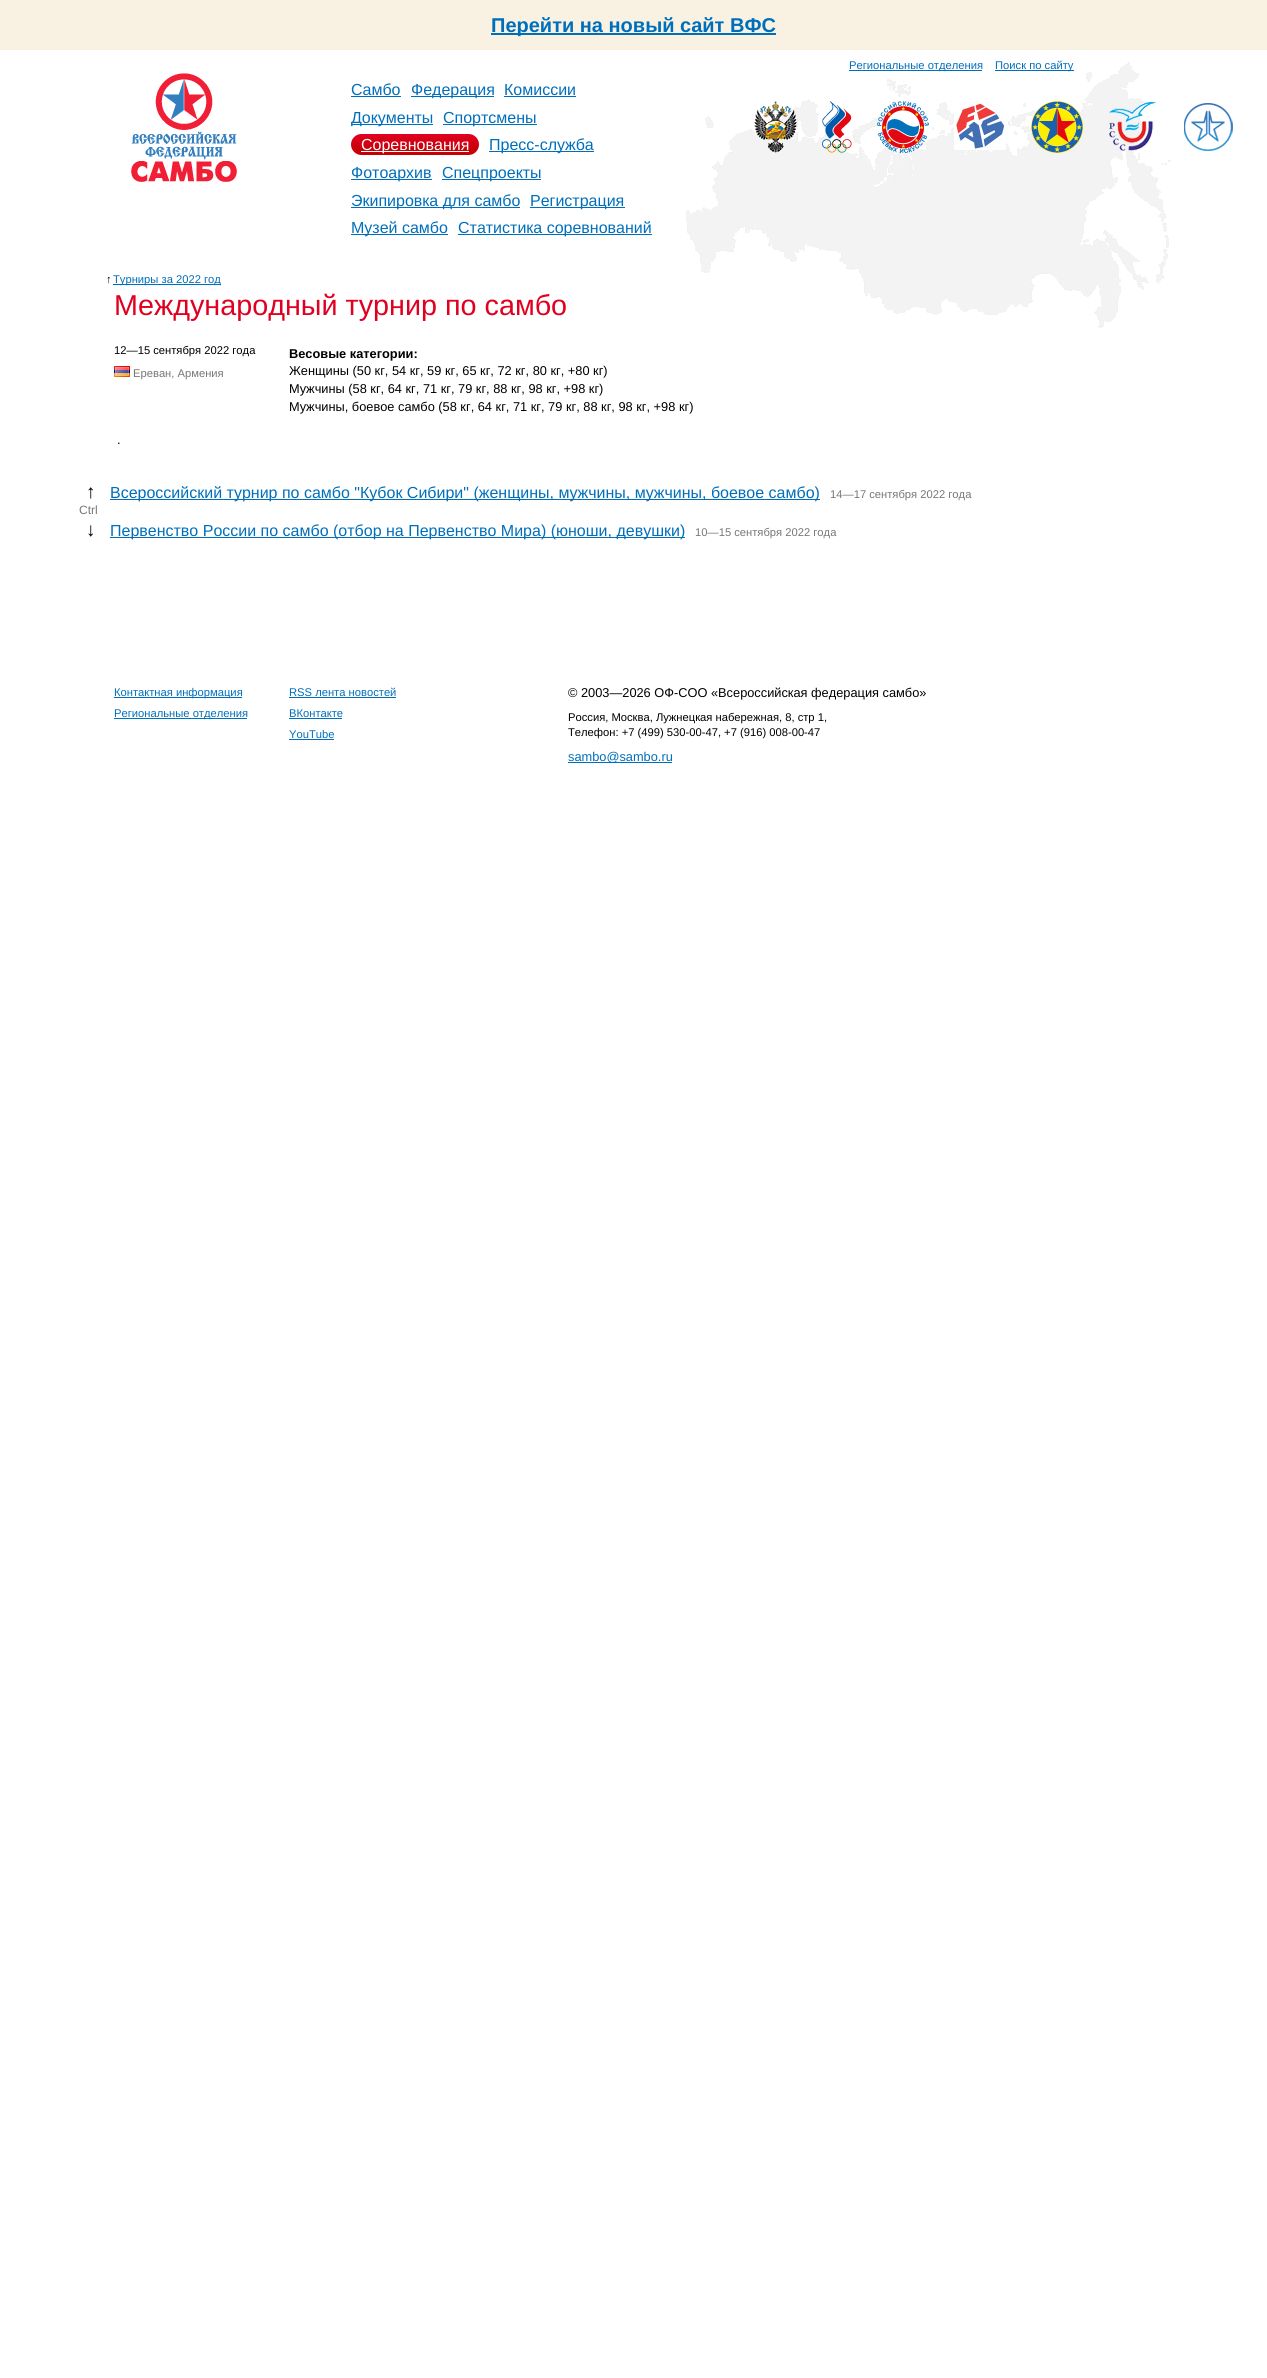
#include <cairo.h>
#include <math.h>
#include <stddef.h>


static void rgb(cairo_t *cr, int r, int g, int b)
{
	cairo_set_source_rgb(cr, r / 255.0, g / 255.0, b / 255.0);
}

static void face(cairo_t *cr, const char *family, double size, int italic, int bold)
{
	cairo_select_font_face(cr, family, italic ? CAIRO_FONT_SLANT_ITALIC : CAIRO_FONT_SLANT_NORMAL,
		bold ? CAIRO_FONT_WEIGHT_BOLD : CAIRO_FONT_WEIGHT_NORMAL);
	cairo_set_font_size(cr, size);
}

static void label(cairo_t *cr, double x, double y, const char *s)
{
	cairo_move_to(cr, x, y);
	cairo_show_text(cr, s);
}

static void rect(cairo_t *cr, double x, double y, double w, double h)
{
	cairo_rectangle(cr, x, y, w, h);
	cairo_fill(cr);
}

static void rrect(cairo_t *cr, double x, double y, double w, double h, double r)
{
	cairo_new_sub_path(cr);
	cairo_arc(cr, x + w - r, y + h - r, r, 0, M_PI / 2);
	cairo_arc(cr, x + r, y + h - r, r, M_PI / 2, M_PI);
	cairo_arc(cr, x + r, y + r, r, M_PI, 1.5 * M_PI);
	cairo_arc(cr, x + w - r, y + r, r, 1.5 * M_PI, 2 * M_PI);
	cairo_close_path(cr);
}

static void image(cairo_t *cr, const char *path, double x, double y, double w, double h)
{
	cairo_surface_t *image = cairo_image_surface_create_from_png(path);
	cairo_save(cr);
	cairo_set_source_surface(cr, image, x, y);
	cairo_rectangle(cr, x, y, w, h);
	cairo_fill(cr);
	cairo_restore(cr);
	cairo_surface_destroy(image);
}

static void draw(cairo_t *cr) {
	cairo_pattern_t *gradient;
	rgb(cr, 255, 255, 255);
	cairo_paint(cr);
	rgb(cr, 249, 242, 226);
	rect(cr, 0, 0, 1267, 50);
	rgb(cr, 0, 111, 187);
	rect(cr, 491, 33, 285, 2);
	face(cr, "Liberation Sans", 20, 0, 1);
	label(cr, 491, 32, "Перейти на новый сайт ВФС");
	image(cr, "image0.png", 686, 62, 485, 266);
	rect(cr, 849, 70, 133, 1);
	face(cr, "Liberation Sans", 11.2, 0, 0);
	label(cr, 849, 69, "Региональные отделения");
	rect(cr, 995, 70, 79, 1);
	label(cr, 995, 69, "Поиск по сайту");
	image(cr, "image1.png", 131, 73, 106, 109);
	face(cr, "Liberation Sans", 16, 0, 0);
	label(cr, 351, 95, "Самбо");
	rect(cr, 351, 96, 50, 1);
	rect(cr, 411, 96, 83, 1);
	label(cr, 411, 95, "Федерация");
	label(cr, 504, 95, "Комиссии");
	rect(cr, 504, 96, 72, 1);
	rect(cr, 351, 124, 82, 1);
	label(cr, 351, 123, "Документы");
	rect(cr, 443, 124, 94, 1);
	label(cr, 443, 123, "Спортсмены");
	gradient = cairo_pattern_create_linear(351, 134, 351, 155);
	cairo_pattern_add_color_stop_rgba(gradient, 0, 0.878, 0, 0.125, 1);
	cairo_pattern_add_color_stop_rgba(gradient, 1, 0.753, 0.004, 0.004, 1);
	cairo_set_source(cr, gradient);
	cairo_pattern_destroy(gradient);
	rrect(cr, 351, 134, 128, 21, 10.5);
	cairo_fill(cr);
	rgb(cr, 255, 255, 255);
	rect(cr, 361, 151, 108, 1);
	label(cr, 361, 150, "Соревнования");
	rgb(cr, 0, 111, 187);
	rect(cr, 489, 151, 105, 1);
	label(cr, 489, 150, "Пресс-служба");
	rect(cr, 351, 179, 81, 1);
	label(cr, 351, 178, "Фотоархив");
	rect(cr, 442, 179, 99, 1);
	label(cr, 442, 178, "Спецпроекты");
	rect(cr, 351, 207, 169, 1);
	label(cr, 351, 206, "Экипировка для самбо");
	rect(cr, 530, 207, 95, 1);
	label(cr, 530, 206, "Регистрация");
	rect(cr, 351, 234, 97, 1);
	label(cr, 351, 233, "Музей самбо");
	rect(cr, 458, 234, 194, 1);
	label(cr, 458, 233, "Статистика соревнований");
	image(cr, "image2.png", 754, 101, 43, 52);
	image(cr, "image3.png", 822, 101, 30, 52);
	image(cr, "image4.png", 877, 101, 52, 52);
	image(cr, "image5.png", 954, 101, 52, 49);
	image(cr, "image6.png", 1031, 101, 52, 52);
	image(cr, "image7.png", 1109, 101, 47, 50);
	image(cr, "image8.png", 1184, 103, 49, 48);
	face(cr, "Liberation Sans", 11.2, 0, 0);
	rgb(cr, 0, 0, 0);
	label(cr, 106, 283, "↑");
	rgb(cr, 0, 111, 187);
	rect(cr, 113, 284, 108, 1);
	label(cr, 113, 283, "Турниры за 2022 год");
	face(cr, "Liberation Sans", 28.75, 0, 0);
	rgb(cr, 224, 0, 32);
	label(cr, 114, 315, "Международный турнир по самбо");
	face(cr, "Liberation Sans", 11.2, 0, 0);
	rgb(cr, 0, 0, 0);
	label(cr, 114, 354, "12—15 сентября 2022 года");
	image(cr, "image9.png", 114, 366, 16, 11);
	rgb(cr, 119, 119, 119);
	label(cr, 133, 377, "Ереван, Армения");
	face(cr, "Liberation Sans", 12.8, 0, 1);
	rgb(cr, 0, 0, 0);
	label(cr, 289, 358, "Весовые категории:");
	face(cr, "Liberation Sans", 12.8, 0, 0);
	label(cr, 289, 375, "Женщины (50 кг, 54 кг, 59 кг, 65 кг, 72 кг, 80 кг, +80 кг)");
	label(cr, 289, 393, "Мужчины (58 кг, 64 кг, 71 кг, 79 кг, 88 кг, 98 кг, +98 кг)");
	label(cr, 289, 411, "Мужчины, боевое самбо (58 кг, 64 кг, 71 кг, 79 кг, 88 кг, 98 кг, +98 кг)");
	label(cr, 117, 444, ".");
	face(cr, "Liberation Sans", 19, 0, 0);
	label(cr, 86, 498, "↑");
	rgb(cr, 0, 111, 187);
	rect(cr, 110, 499, 710, 1);
	face(cr, "Liberation Sans", 16, 0, 0);
	label(cr, 110, 498, "Всероссийский турнир по самбо \"Кубок Сибири\" (женщины, мужчины, мужчины, боевое самбо)");
	face(cr, "Liberation Sans", 11.2, 0, 0);
	rgb(cr, 119, 119, 119);
	label(cr, 830, 498, "14—17 сентября 2022 года");
	face(cr, "Liberation Sans", 12, 0, 0);
	label(cr, 79, 514, "Ctrl");
	face(cr, "Liberation Sans", 19, 0, 0);
	rgb(cr, 0, 0, 0);
	label(cr, 86, 536, "↓");
	rgb(cr, 0, 111, 187);
	rect(cr, 110, 537, 575, 1);
	face(cr, "Liberation Sans", 16, 0, 0);
	label(cr, 110, 536, "Первенство России по самбо (отбор на Первенство Мира) (юноши, девушки)");
	face(cr, "Liberation Sans", 11.2, 0, 0);
	rgb(cr, 119, 119, 119);
	label(cr, 695, 536, "10—15 сентября 2022 года");
	rgb(cr, 0, 111, 187);
	rect(cr, 114, 697, 128, 1);
	label(cr, 114, 696, "Контактная информация");
	rect(cr, 114, 718, 133, 1);
	label(cr, 114, 717, "Региональные отделения");
	label(cr, 289, 696, "RSS лента новостей");
	rect(cr, 289, 697, 107, 1);
	label(cr, 289, 717, "ВКонтакте");
	rect(cr, 289, 718, 53, 1);
	label(cr, 289, 738, "YouTube");
	rect(cr, 289, 739, 45, 1);
	face(cr, "Liberation Sans", 12.8, 0, 0);
	rgb(cr, 0, 0, 0);
	label(cr, 568, 697, "© 2003—2026 ОФ-СОО «Всероссийская федерация самбо»");
	face(cr, "Liberation Sans", 11.2, 0, 0);
	label(cr, 568, 721, "Россия, Москва, Лужнецкая набережная, 8, стр 1,");
	label(cr, 568, 736, "Телефон: +7 (499) 530-00-47, +7 (916) 008-00-47");
	rgb(cr, 0, 111, 187);
	rect(cr, 568, 762, 104, 1);
	face(cr, "Liberation Sans", 12.8, 0, 0);
	label(cr, 568, 761, "sambo@sambo.ru");
}

int main(void) {
	cairo_surface_t *surface = cairo_image_surface_create(CAIRO_FORMAT_RGB24, 1267, 2378);
	cairo_t *cr = cairo_create(surface);
	cairo_font_options_t *options = cairo_font_options_create();
	cairo_font_options_set_hint_metrics(options, CAIRO_HINT_METRICS_OFF);
	cairo_font_options_set_hint_style(options, CAIRO_HINT_STYLE_NONE);
	cairo_set_font_options(cr, options);
	cairo_set_miter_limit(cr, 4);
	draw(cr);
	cairo_surface_write_to_png(surface, "render.png");
	cairo_font_options_destroy(options);
	cairo_destroy(cr);
	cairo_surface_destroy(surface);
	return 0;
}
